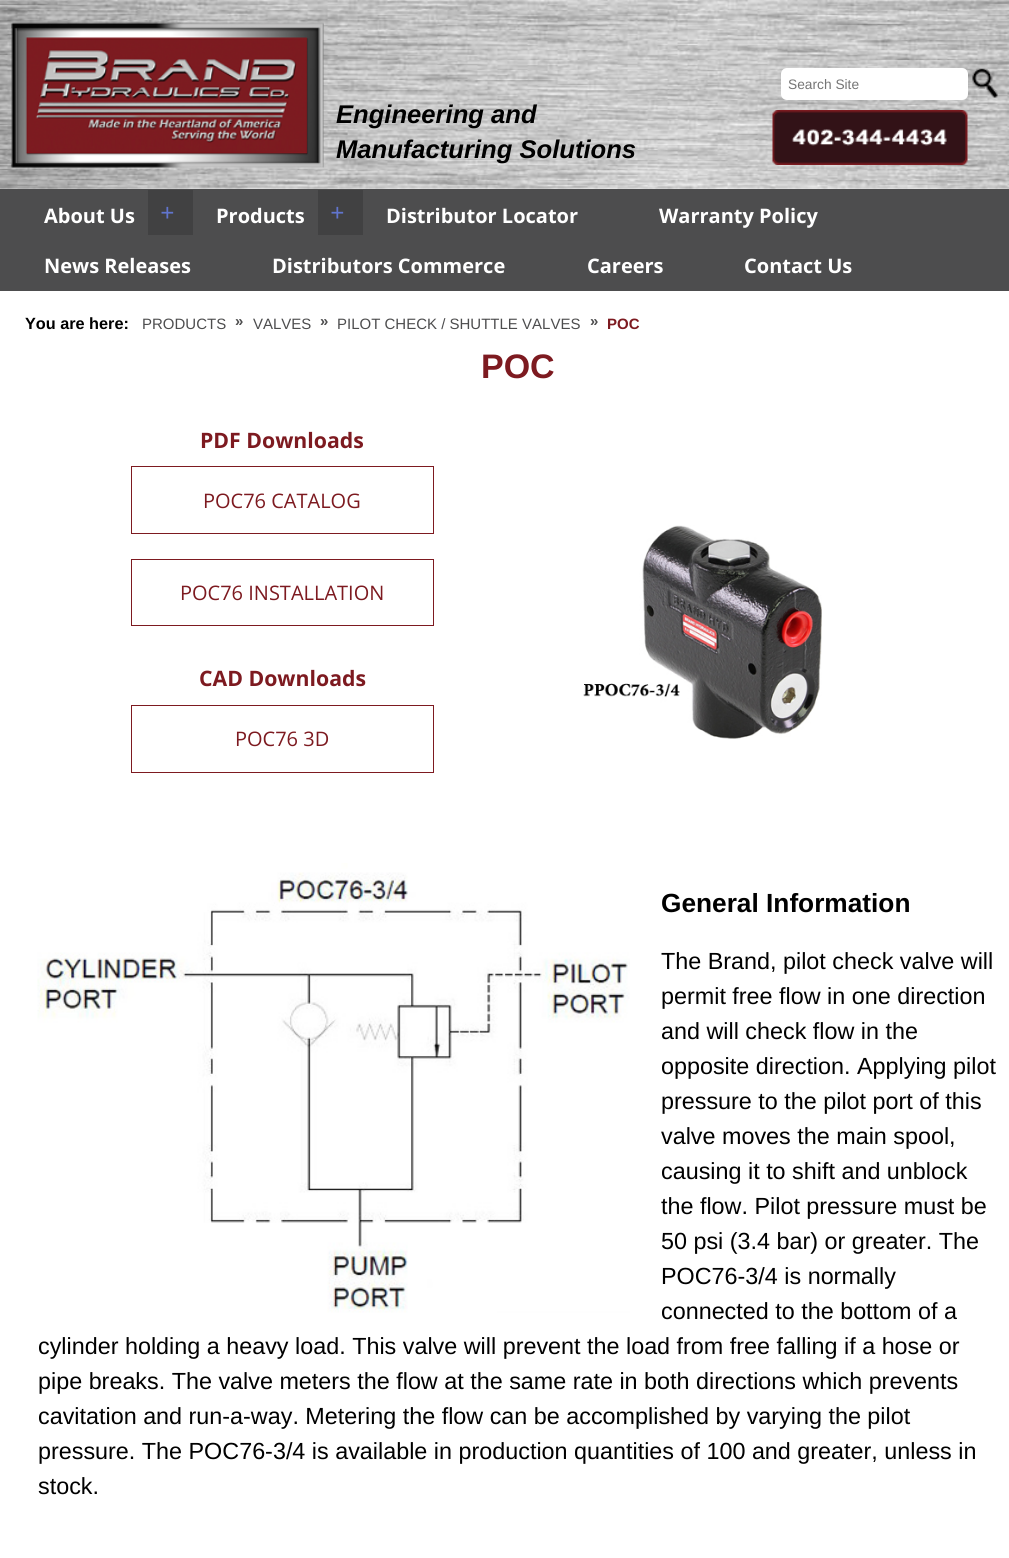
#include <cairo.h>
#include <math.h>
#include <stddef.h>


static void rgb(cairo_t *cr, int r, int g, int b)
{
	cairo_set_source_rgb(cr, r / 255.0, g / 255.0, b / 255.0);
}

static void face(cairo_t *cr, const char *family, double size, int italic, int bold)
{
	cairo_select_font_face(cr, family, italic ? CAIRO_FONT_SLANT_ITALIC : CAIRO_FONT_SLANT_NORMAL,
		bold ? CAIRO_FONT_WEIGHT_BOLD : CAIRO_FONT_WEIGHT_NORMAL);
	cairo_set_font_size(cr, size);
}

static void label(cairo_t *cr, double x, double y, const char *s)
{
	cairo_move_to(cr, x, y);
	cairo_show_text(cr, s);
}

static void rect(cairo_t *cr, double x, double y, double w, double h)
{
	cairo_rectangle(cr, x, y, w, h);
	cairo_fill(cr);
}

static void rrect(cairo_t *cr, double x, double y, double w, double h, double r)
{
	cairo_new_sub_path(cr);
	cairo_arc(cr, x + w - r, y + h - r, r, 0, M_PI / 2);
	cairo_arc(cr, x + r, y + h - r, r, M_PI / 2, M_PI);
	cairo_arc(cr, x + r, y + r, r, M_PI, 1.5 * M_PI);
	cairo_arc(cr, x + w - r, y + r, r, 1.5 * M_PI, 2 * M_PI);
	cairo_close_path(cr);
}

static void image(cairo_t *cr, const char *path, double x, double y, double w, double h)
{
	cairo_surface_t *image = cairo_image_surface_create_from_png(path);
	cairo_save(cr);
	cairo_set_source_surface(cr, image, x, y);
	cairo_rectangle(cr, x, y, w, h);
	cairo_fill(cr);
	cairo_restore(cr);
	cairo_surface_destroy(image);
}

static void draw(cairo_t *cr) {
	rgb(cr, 255, 255, 255);
	cairo_paint(cr);
	image(cr, "image0.png", 0, 0, 1009, 189);
	image(cr, "image1.png", 11, 22, 313, 146);
	rgb(cr, 255, 255, 255);
	rrect(cr, 781, 68, 187, 32, 6);
	cairo_fill(cr);
	face(cr, "Liberation Sans", 13.75, 0, 0);
	rgb(cr, 117, 117, 117);
	label(cr, 788, 89, "Search Site");
	image(cr, "image2.png", 972, 68, 26, 30);
	image(cr, "image3.png", 772, 110, 196, 55);
	face(cr, "Liberation Sans", 25.6, 1, 1);
	rgb(cr, 0, 0, 0);
	label(cr, 336, 123, "Engineering and");
	label(cr, 336, 158, "Manufacturing Solutions");
	rgb(cr, 77, 77, 78);
	rect(cr, 0, 189, 1009, 102);
	face(cr, "Open Sans", 20, 0, 1);
	rgb(cr, 255, 255, 255);
	label(cr, 44, 223, "About Us");
	rgb(cr, 65, 65, 66);
	rect(cr, 148, 190, 45, 45);
	face(cr, "Liberation Serif", 25, 1, 1);
	rgb(cr, 97, 117, 206);
	label(cr, 160, 221, "+");
	face(cr, "Open Sans", 20, 0, 1);
	rgb(cr, 255, 255, 255);
	label(cr, 216, 223, "Products");
	rgb(cr, 65, 65, 66);
	rect(cr, 318, 190, 45, 45);
	face(cr, "Liberation Serif", 25, 1, 1);
	rgb(cr, 97, 117, 206);
	label(cr, 330, 221, "+");
	face(cr, "Open Sans", 20, 0, 1);
	rgb(cr, 255, 255, 255);
	label(cr, 386, 223, "Distributor Locator");
	label(cr, 659, 223, "Warranty Policy");
	label(cr, 44, 273, "News Releases");
	label(cr, 272, 273, "Distributors Commerce");
	label(cr, 587, 273, "Careers");
	label(cr, 744, 273, "Contact Us");
	face(cr, "Liberation Sans", 16.25, 0, 1);
	rgb(cr, 0, 0, 0);
	label(cr, 25, 329, "You are here:");
	face(cr, "Liberation Sans", 15, 0, 0);
	rgb(cr, 77, 77, 78);
	label(cr, 142, 329, "PRODUCTS");
	face(cr, "Liberation Sans", 15, 0, 1);
	label(cr, 235, 326, "»");
	face(cr, "Liberation Sans", 15, 0, 0);
	label(cr, 253, 329, "VALVES");
	face(cr, "Liberation Sans", 15, 0, 1);
	label(cr, 320, 326, "»");
	face(cr, "Liberation Sans", 15, 0, 0);
	label(cr, 337, 329, "PILOT CHECK / SHUTTLE VALVES");
	face(cr, "Liberation Sans", 15, 0, 1);
	label(cr, 590, 326, "»");
	rgb(cr, 125, 26, 32);
	label(cr, 607, 329, "POC");
	face(cr, "Liberation Sans", 34, 0, 1);
	label(cr, 481, 378, "POC");
	face(cr, "Open Sans", 21.25, 0, 1);
	label(cr, 200, 448, "PDF Downloads");
	cairo_rectangle(cr, 131.5, 466.5, 302, 67);
	cairo_set_line_width(cr, 1);
	cairo_stroke(cr);
	face(cr, "Open Sans", 20, 0, 0);
	label(cr, 203, 508, "POC76 CATALOG");
	cairo_rectangle(cr, 131.5, 559.5, 302, 66);
	cairo_stroke(cr);
	label(cr, 180, 600, "POC76 INSTALLATION");
	face(cr, "Open Sans", 21.25, 0, 1);
	label(cr, 199, 686, "CAD Downloads");
	cairo_rectangle(cr, 131.5, 705.5, 302, 67);
	cairo_stroke(cr);
	face(cr, "Open Sans", 20, 0, 0);
	label(cr, 235, 746, "POC76 3D");
	image(cr, "image4.png", 583, 525, 239, 214);
	image(cr, "image5.png", 37, 863, 593, 450);
	face(cr, "Liberation Sans", 26.25, 0, 1);
	rgb(cr, 0, 0, 0);
	label(cr, 661, 912, "General Information");
	face(cr, "Liberation Sans", 23.35, 0, 0);
	label(cr, 661, 969, "The Brand, pilot check valve will");
	label(cr, 661, 1004, "permit free flow in one direction");
	label(cr, 661, 1039, "and will check flow in the");
	label(cr, 661, 1074, "opposite direction. Applying pilot");
	label(cr, 661, 1109, "pressure to the pilot port of this");
	label(cr, 661, 1144, "valve moves the main spool,");
	label(cr, 661, 1179, "causing it to shift and unblock");
	label(cr, 661, 1214, "the flow. Pilot pressure must be");
	label(cr, 661, 1249, "50 psi (3.4 bar) or greater. The");
	label(cr, 661, 1284, "POC76-3/4 is normally");
	label(cr, 661, 1319, "connected to the bottom of a");
	label(cr, 38, 1354, "cylinder holding a heavy load. This valve will prevent the load from free falling if a hose or");
	label(cr, 38, 1389, "pipe breaks. The valve meters the flow at the same rate in both directions which prevents");
	label(cr, 38, 1424, "cavitation and run-a-way. Metering the flow can be accomplished by varying the pilot");
	label(cr, 38, 1459, "pressure. The POC76-3/4 is available in production quantities of 100 and greater, unless in");
	label(cr, 38, 1494, "stock.");
}

int main(void) {
	cairo_surface_t *surface = cairo_image_surface_create(CAIRO_FORMAT_RGB24, 1009, 1558);
	cairo_t *cr = cairo_create(surface);
	cairo_font_options_t *options = cairo_font_options_create();
	cairo_font_options_set_hint_metrics(options, CAIRO_HINT_METRICS_OFF);
	cairo_font_options_set_hint_style(options, CAIRO_HINT_STYLE_NONE);
	cairo_set_font_options(cr, options);
	cairo_set_miter_limit(cr, 4);
	draw(cr);
	cairo_surface_write_to_png(surface, "render.png");
	cairo_font_options_destroy(options);
	cairo_destroy(cr);
	cairo_surface_destroy(surface);
	return 0;
}
